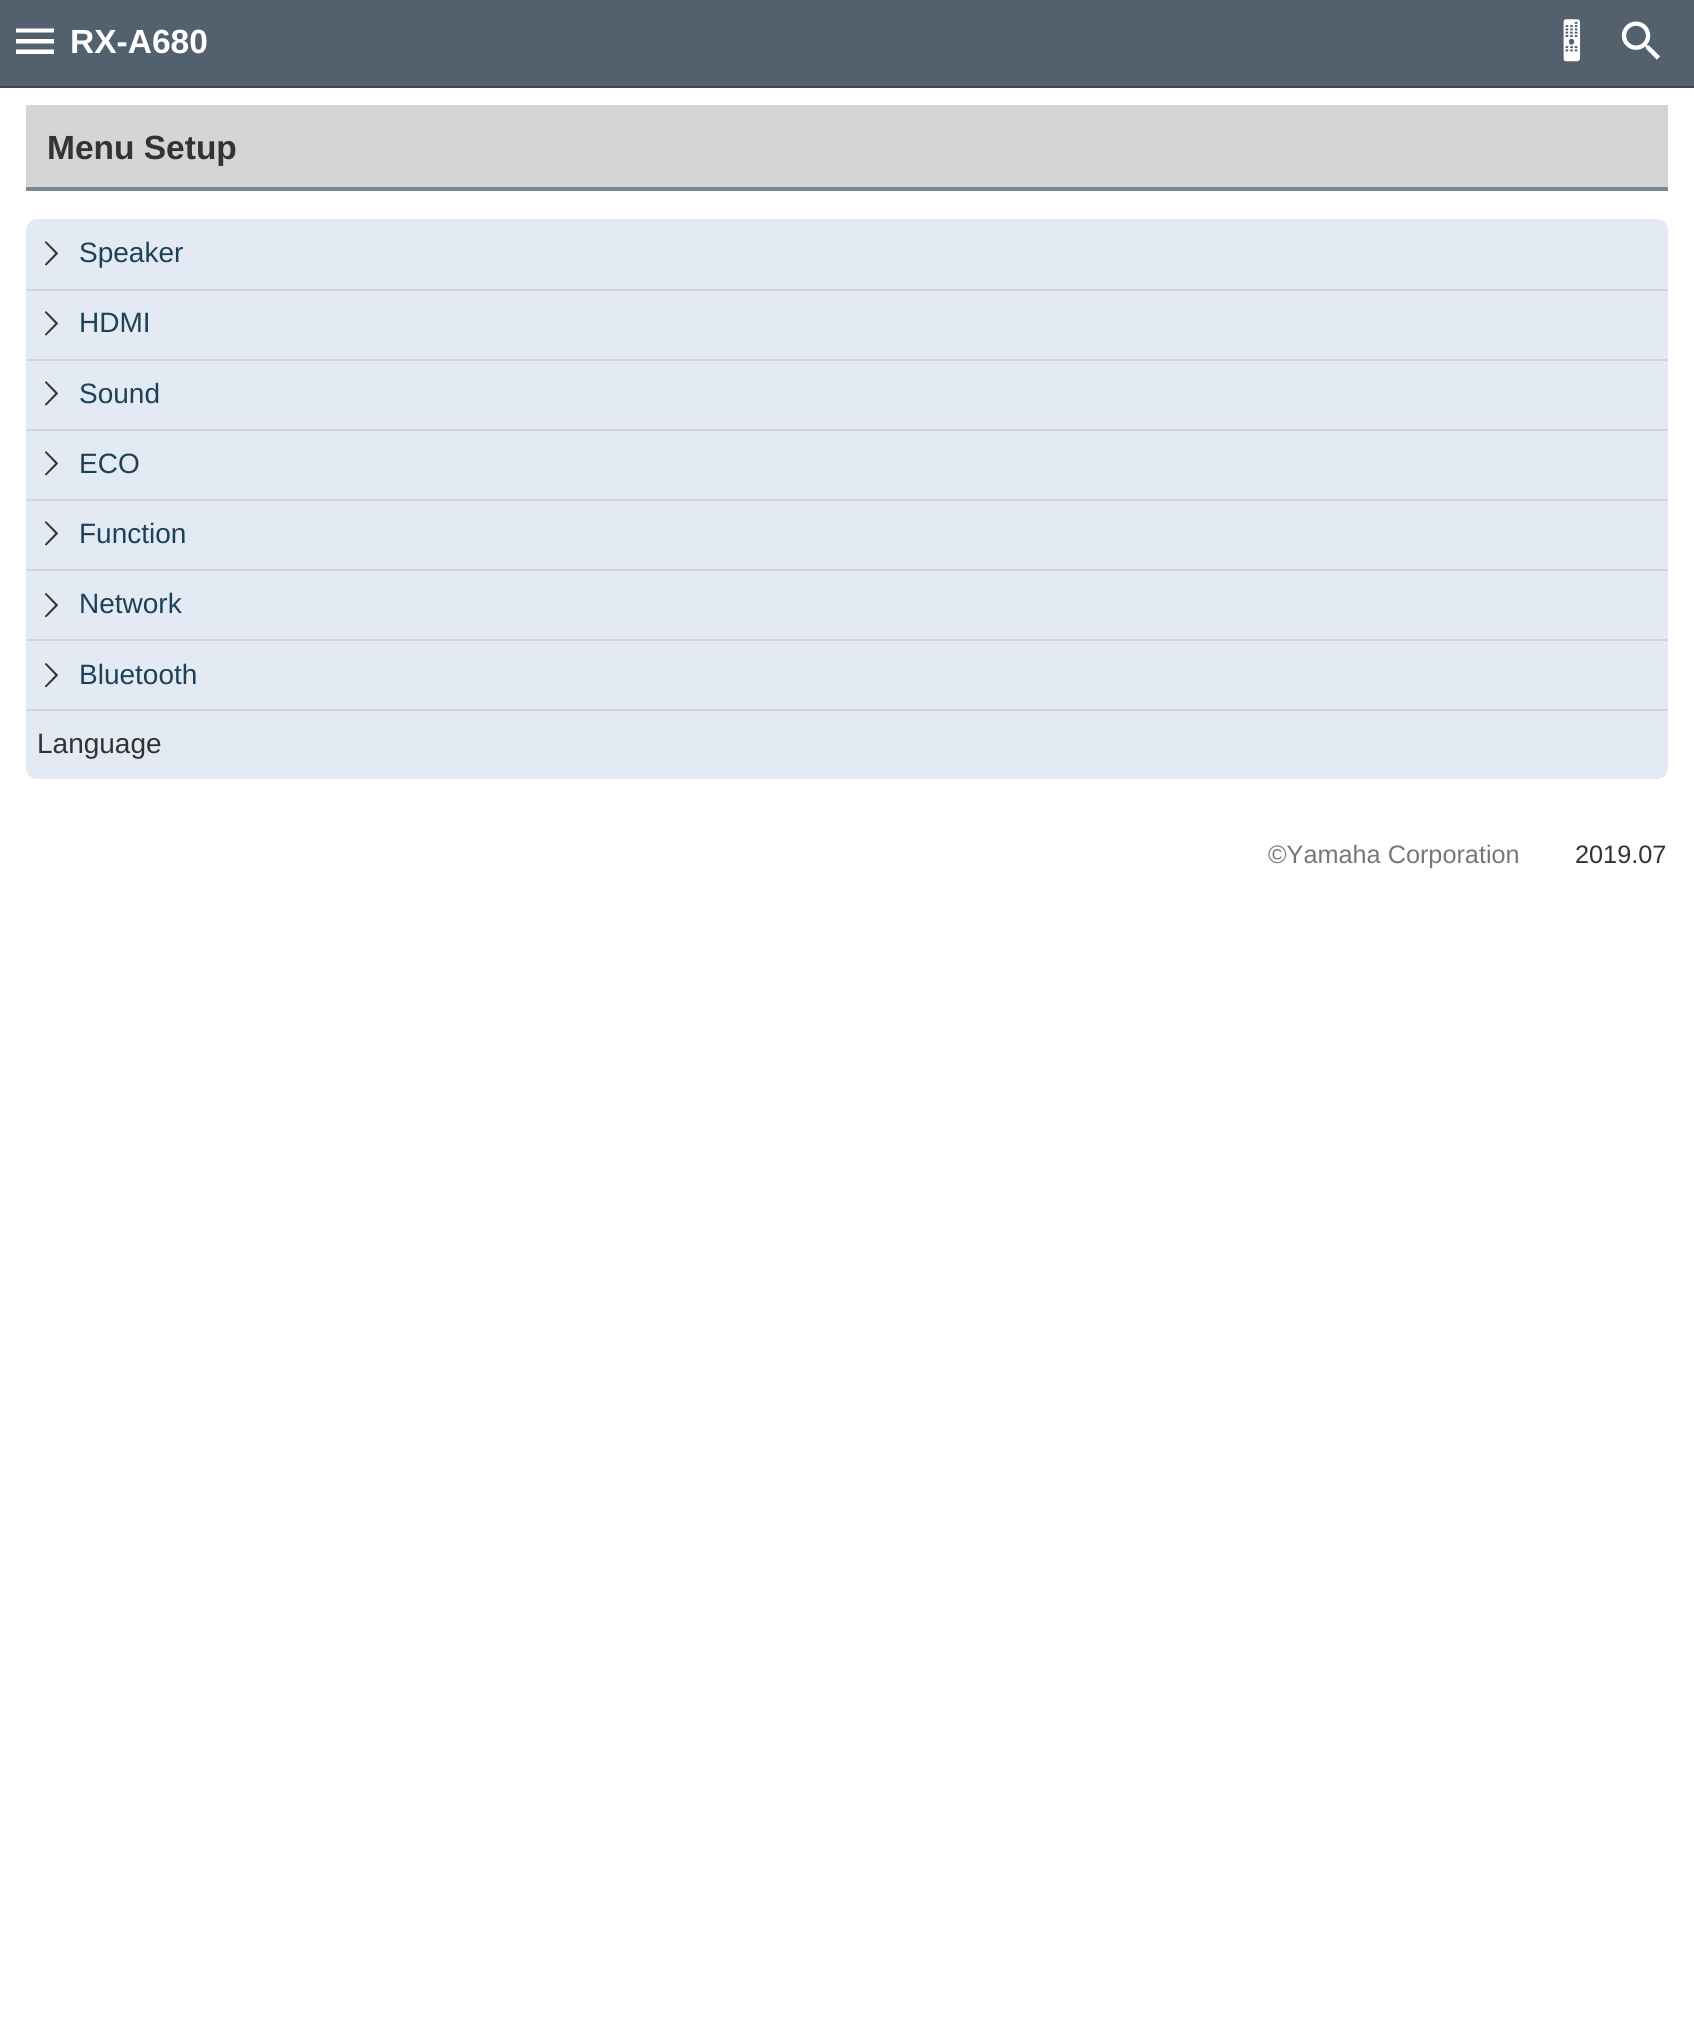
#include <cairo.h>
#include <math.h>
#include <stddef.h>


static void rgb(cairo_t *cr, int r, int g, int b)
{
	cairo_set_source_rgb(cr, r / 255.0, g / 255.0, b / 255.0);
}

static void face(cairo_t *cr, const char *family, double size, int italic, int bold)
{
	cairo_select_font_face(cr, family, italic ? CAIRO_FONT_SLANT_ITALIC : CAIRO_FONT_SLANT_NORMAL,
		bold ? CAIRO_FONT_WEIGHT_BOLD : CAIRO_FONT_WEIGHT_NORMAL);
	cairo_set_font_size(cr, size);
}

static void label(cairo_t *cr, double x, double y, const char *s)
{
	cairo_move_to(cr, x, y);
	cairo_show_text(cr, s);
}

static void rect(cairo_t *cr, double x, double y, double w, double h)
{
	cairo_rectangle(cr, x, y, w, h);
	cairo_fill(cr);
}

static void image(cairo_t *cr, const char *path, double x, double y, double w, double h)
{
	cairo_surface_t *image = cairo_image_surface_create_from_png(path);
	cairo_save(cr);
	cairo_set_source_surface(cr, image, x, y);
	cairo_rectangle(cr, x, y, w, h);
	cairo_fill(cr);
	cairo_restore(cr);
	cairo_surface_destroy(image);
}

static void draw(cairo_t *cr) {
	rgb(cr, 255, 255, 255);
	cairo_paint(cr);
	rgb(cr, 83, 96, 109);
	rect(cr, 0, 0, 1694, 86);
	rgb(cr, 58, 70, 81);
	rect(cr, 0, 86, 1694, 2);
	rgb(cr, 255, 255, 255);
	cairo_new_path(cr);
	cairo_move_to(cr, 16, 54);
	cairo_line_to(cr, 54, 54);
	cairo_line_to(cr, 54, 49.5);
	cairo_line_to(cr, 16, 49.5);
	cairo_close_path(cr);
	cairo_move_to(cr, 16, 43.5);
	cairo_line_to(cr, 54, 43.5);
	cairo_line_to(cr, 54, 39);
	cairo_line_to(cr, 16, 39);
	cairo_close_path(cr);
	cairo_move_to(cr, 16, 28.5);
	cairo_line_to(cr, 16, 32.5);
	cairo_line_to(cr, 54, 32.5);
	cairo_line_to(cr, 54, 28.5);
	cairo_close_path(cr);
	cairo_fill(cr);
	face(cr, "Liberation Sans", 33.5, 0, 1);
	label(cr, 70, 53, "RX-A680");
	image(cr, "image0.png", 1563, 19, 18, 43);
	image(cr, "image1.png", 1621, 21, 39, 39);
	rgb(cr, 213, 213, 213);
	rect(cr, 26, 105, 1642, 82);
	rgb(cr, 117, 135, 155);
	rect(cr, 26, 187, 1642, 4);
	rgb(cr, 51, 51, 51);
	label(cr, 47, 159, "Menu Setup");
	rgb(cr, 228, 234, 243);
	cairo_new_path(cr);
	cairo_move_to(cr, 37, 219);
	cairo_line_to(cr, 1657, 219);
	cairo_curve_to(cr, 1663, 219, 1668, 224, 1668, 230);
	cairo_line_to(cr, 1668, 289);
	cairo_line_to(cr, 26, 289);
	cairo_line_to(cr, 26, 230);
	cairo_curve_to(cr, 26, 224, 31, 219, 37, 219);
	cairo_close_path(cr);
	cairo_fill(cr);
	image(cr, "image2.png", 45, 241, 13, 25);
	face(cr, "Liberation Sans", 28, 0, 0);
	rgb(cr, 28, 66, 87);
	label(cr, 79, 262, "Speaker");
	rgb(cr, 213, 213, 213);
	rect(cr, 26, 289, 1642, 2);
	rgb(cr, 228, 234, 243);
	rect(cr, 26, 291, 1642, 68);
	image(cr, "image2.png", 45, 311, 13, 25);
	rgb(cr, 28, 66, 87);
	label(cr, 79, 332, "HDMI");
	rgb(cr, 213, 213, 213);
	rect(cr, 26, 359, 1642, 2);
	rgb(cr, 228, 234, 243);
	rect(cr, 26, 361, 1642, 68);
	image(cr, "image2.png", 45, 381, 13, 25);
	rgb(cr, 28, 66, 87);
	label(cr, 79, 403, "Sound");
	rgb(cr, 213, 213, 213);
	rect(cr, 26, 429, 1642, 2);
	rgb(cr, 228, 234, 243);
	rect(cr, 26, 431, 1642, 68);
	image(cr, "image2.png", 45, 451, 13, 25);
	rgb(cr, 28, 66, 87);
	label(cr, 79, 473, "ECO");
	rgb(cr, 213, 213, 213);
	rect(cr, 26, 499, 1642, 2);
	rgb(cr, 228, 234, 243);
	rect(cr, 26, 501, 1642, 68);
	image(cr, "image2.png", 45, 521, 13, 25);
	rgb(cr, 28, 66, 87);
	label(cr, 79, 543, "Function");
	rgb(cr, 213, 213, 213);
	rect(cr, 26, 569, 1642, 2);
	rgb(cr, 228, 234, 243);
	rect(cr, 26, 571, 1642, 68);
	image(cr, "image3.png", 45, 593, 13, 25);
	rgb(cr, 28, 66, 87);
	label(cr, 79, 613, "Network");
	rgb(cr, 213, 213, 213);
	rect(cr, 26, 639, 1642, 2);
	rgb(cr, 228, 234, 243);
	rect(cr, 26, 641, 1642, 68);
	image(cr, "image3.png", 45, 663, 13, 25);
	rgb(cr, 28, 66, 87);
	label(cr, 79, 684, "Bluetooth");
	rgb(cr, 213, 213, 213);
	rect(cr, 26, 709, 1642, 2);
	rgb(cr, 228, 234, 243);
	cairo_new_path(cr);
	cairo_move_to(cr, 26, 711);
	cairo_line_to(cr, 1668, 711);
	cairo_line_to(cr, 1668, 768);
	cairo_curve_to(cr, 1668, 774, 1663, 779, 1657, 779);
	cairo_line_to(cr, 37, 779);
	cairo_curve_to(cr, 31, 779, 26, 774, 26, 768);
	cairo_close_path(cr);
	cairo_fill(cr);
	rgb(cr, 51, 51, 51);
	label(cr, 37, 753, "Language");
	face(cr, "Liberation Sans", 25.25, 0, 0);
	rgb(cr, 119, 119, 119);
	label(cr, 1268, 863, "©Yamaha Corporation");
	rgb(cr, 51, 51, 51);
	label(cr, 1575, 863, "2019.07");
}

int main(void) {
	cairo_surface_t *surface = cairo_image_surface_create(CAIRO_FORMAT_RGB24, 1694, 2041);
	cairo_t *cr = cairo_create(surface);
	cairo_font_options_t *options = cairo_font_options_create();
	cairo_font_options_set_hint_metrics(options, CAIRO_HINT_METRICS_OFF);
	cairo_font_options_set_hint_style(options, CAIRO_HINT_STYLE_NONE);
	cairo_set_font_options(cr, options);
	cairo_set_miter_limit(cr, 4);
	draw(cr);
	cairo_surface_write_to_png(surface, "render.png");
	cairo_font_options_destroy(options);
	cairo_destroy(cr);
	cairo_surface_destroy(surface);
	return 0;
}
